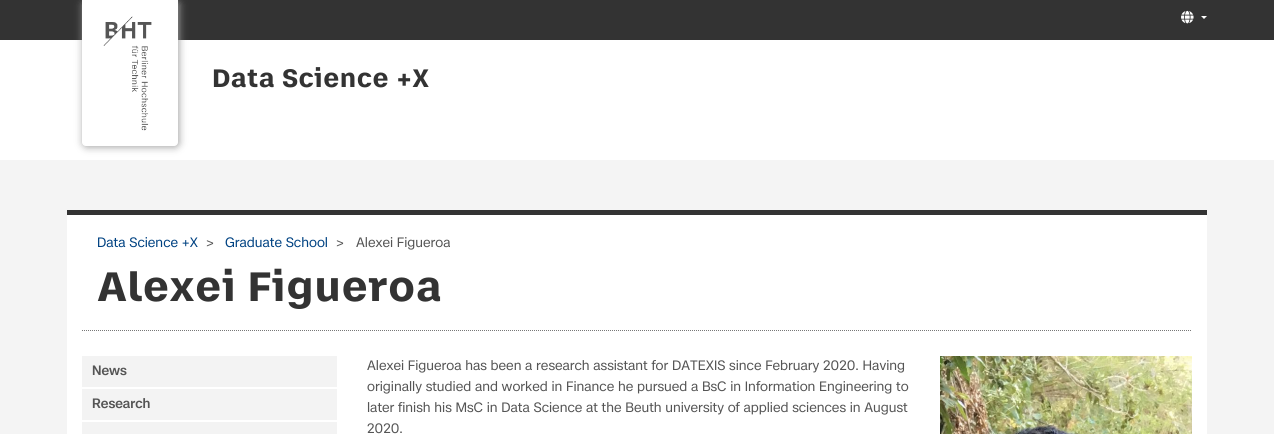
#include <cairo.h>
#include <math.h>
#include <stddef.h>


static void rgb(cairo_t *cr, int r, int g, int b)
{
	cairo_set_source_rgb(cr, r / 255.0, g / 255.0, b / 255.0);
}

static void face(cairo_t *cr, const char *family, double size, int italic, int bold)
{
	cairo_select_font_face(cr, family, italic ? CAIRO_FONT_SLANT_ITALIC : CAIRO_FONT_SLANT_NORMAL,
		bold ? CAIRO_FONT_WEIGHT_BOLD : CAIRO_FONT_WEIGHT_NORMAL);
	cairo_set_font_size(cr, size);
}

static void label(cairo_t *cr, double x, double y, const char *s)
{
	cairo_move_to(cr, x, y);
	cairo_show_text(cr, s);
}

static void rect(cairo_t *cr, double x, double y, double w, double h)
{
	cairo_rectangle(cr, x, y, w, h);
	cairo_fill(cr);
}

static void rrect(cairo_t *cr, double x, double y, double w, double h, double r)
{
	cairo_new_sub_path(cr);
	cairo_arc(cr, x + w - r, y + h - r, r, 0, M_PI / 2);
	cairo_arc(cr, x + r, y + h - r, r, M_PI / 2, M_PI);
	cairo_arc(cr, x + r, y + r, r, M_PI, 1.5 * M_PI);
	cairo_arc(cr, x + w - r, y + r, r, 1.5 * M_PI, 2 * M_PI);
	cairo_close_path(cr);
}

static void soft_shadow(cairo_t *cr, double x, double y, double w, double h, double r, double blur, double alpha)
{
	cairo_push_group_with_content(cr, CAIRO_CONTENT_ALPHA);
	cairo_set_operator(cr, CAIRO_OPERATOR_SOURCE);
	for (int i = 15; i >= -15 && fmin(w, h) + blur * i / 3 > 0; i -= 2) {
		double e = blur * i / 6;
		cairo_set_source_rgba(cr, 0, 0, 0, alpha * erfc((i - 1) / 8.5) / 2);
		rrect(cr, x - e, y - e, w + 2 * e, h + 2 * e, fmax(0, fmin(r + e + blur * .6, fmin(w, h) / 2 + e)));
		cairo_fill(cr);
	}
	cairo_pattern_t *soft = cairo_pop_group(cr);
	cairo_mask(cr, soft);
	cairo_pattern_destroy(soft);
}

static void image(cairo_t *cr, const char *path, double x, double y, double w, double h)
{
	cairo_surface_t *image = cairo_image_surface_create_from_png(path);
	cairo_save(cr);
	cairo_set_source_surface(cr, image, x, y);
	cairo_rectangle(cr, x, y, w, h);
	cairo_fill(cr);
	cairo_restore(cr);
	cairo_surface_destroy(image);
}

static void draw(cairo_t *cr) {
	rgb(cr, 244, 244, 244);
	cairo_paint(cr);
	rgb(cr, 51, 51, 51);
	rect(cr, 0, 0, 1274, 40);
	rgb(cr, 255, 255, 255);
	rect(cr, 0, 40, 1274, 120);
	rgb(cr, 160, 160, 160);
	soft_shadow(cr, 83, 1, 96, 146, 4, 4, 1);
	rgb(cr, 255, 255, 255);
	cairo_new_path(cr);
	cairo_move_to(cr, 82.5, 0.5);
	cairo_line_to(cr, 177.5, 0.5);
	cairo_line_to(cr, 177.5, 142);
	cairo_curve_to(cr, 177.5, 144, 176, 145.5, 174, 145.5);
	cairo_line_to(cr, 86, 145.5);
	cairo_curve_to(cr, 84, 145.5, 82.5, 144, 82.5, 142);
	cairo_close_path(cr);
	cairo_fill_preserve(cr);
	cairo_set_line_width(cr, 1);
	cairo_stroke(cr);
	image(cr, "image0.png", 103, 16, 49, 115);
	image(cr, "image1.png", 1181, 10, 13, 14);
	cairo_new_path(cr);
	cairo_move_to(cr, 1201, 16);
	cairo_line_to(cr, 1207, 16);
	cairo_line_to(cr, 1204, 19);
	cairo_close_path(cr);
	cairo_fill(cr);
	face(cr, "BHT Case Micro", 24, 0, 1);
	rgb(cr, 51, 51, 51);
	label(cr, 212, 87, "Data Science +X");
	rgb(cr, 255, 255, 255);
	rect(cr, 67, 215, 1140, 219);
	rgb(cr, 51, 51, 51);
	rect(cr, 67, 210, 1140, 5);
	face(cr, "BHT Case", 13, 0, 0);
	rgb(cr, 0, 66, 130);
	label(cr, 97, 247, "Data Science +X");
	rgb(cr, 85, 85, 85);
	label(cr, 206, 247, ">");
	rgb(cr, 0, 66, 130);
	label(cr, 225, 247, "Graduate School");
	rgb(cr, 85, 85, 85);
	label(cr, 336, 247, ">");
	label(cr, 356, 247, "Alexei Figueroa");
	cairo_new_path(cr);
	cairo_move_to(cr, 82, 330.5);
	cairo_line_to(cr, 1192, 330.5);
	rgb(cr, 119, 119, 119);
	cairo_set_dash(cr, (double[]){1, 1}, 2, 0);
	cairo_stroke(cr);
	face(cr, "BHT Case Micro", 39, 0, 1);
	rgb(cr, 51, 51, 51);
	label(cr, 97, 301, "Alexei Figueroa");
	rgb(cr, 243, 243, 243);
	rect(cr, 82, 356, 255, 31);
	face(cr, "BHT Case Medium", 13, 0, 0);
	rgb(cr, 85, 85, 85);
	label(cr, 92, 375, "News");
	rgb(cr, 243, 243, 243);
	rect(cr, 82, 389, 255, 31);
	rgb(cr, 85, 85, 85);
	label(cr, 92, 408, "Research");
	rgb(cr, 243, 243, 243);
	rect(cr, 82, 422, 255, 12);
	face(cr, "BHT Case", 13, 0, 0);
	rgb(cr, 85, 85, 85);
	label(cr, 367, 370, "Alexei Figueroa has been a research assistant for DATEXIS since February 2020. Having");
	label(cr, 367, 391, "originally studied and worked in Finance he pursued a BsC in Information Engineering to");
	label(cr, 367, 412, "later finish his MsC in Data Science at the Beuth university of applied sciences in August");
	label(cr, 367, 433, "2020.");
	image(cr, "image2.png", 940, 356, 252, 78);
}

int main(void) {
	cairo_surface_t *surface = cairo_image_surface_create(CAIRO_FORMAT_RGB24, 1274, 434);
	cairo_t *cr = cairo_create(surface);
	cairo_font_options_t *options = cairo_font_options_create();
	cairo_font_options_set_hint_metrics(options, CAIRO_HINT_METRICS_OFF);
	cairo_font_options_set_hint_style(options, CAIRO_HINT_STYLE_NONE);
	cairo_set_font_options(cr, options);
	cairo_set_miter_limit(cr, 4);
	draw(cr);
	cairo_surface_write_to_png(surface, "render.png");
	cairo_font_options_destroy(options);
	cairo_destroy(cr);
	cairo_surface_destroy(surface);
	return 0;
}
